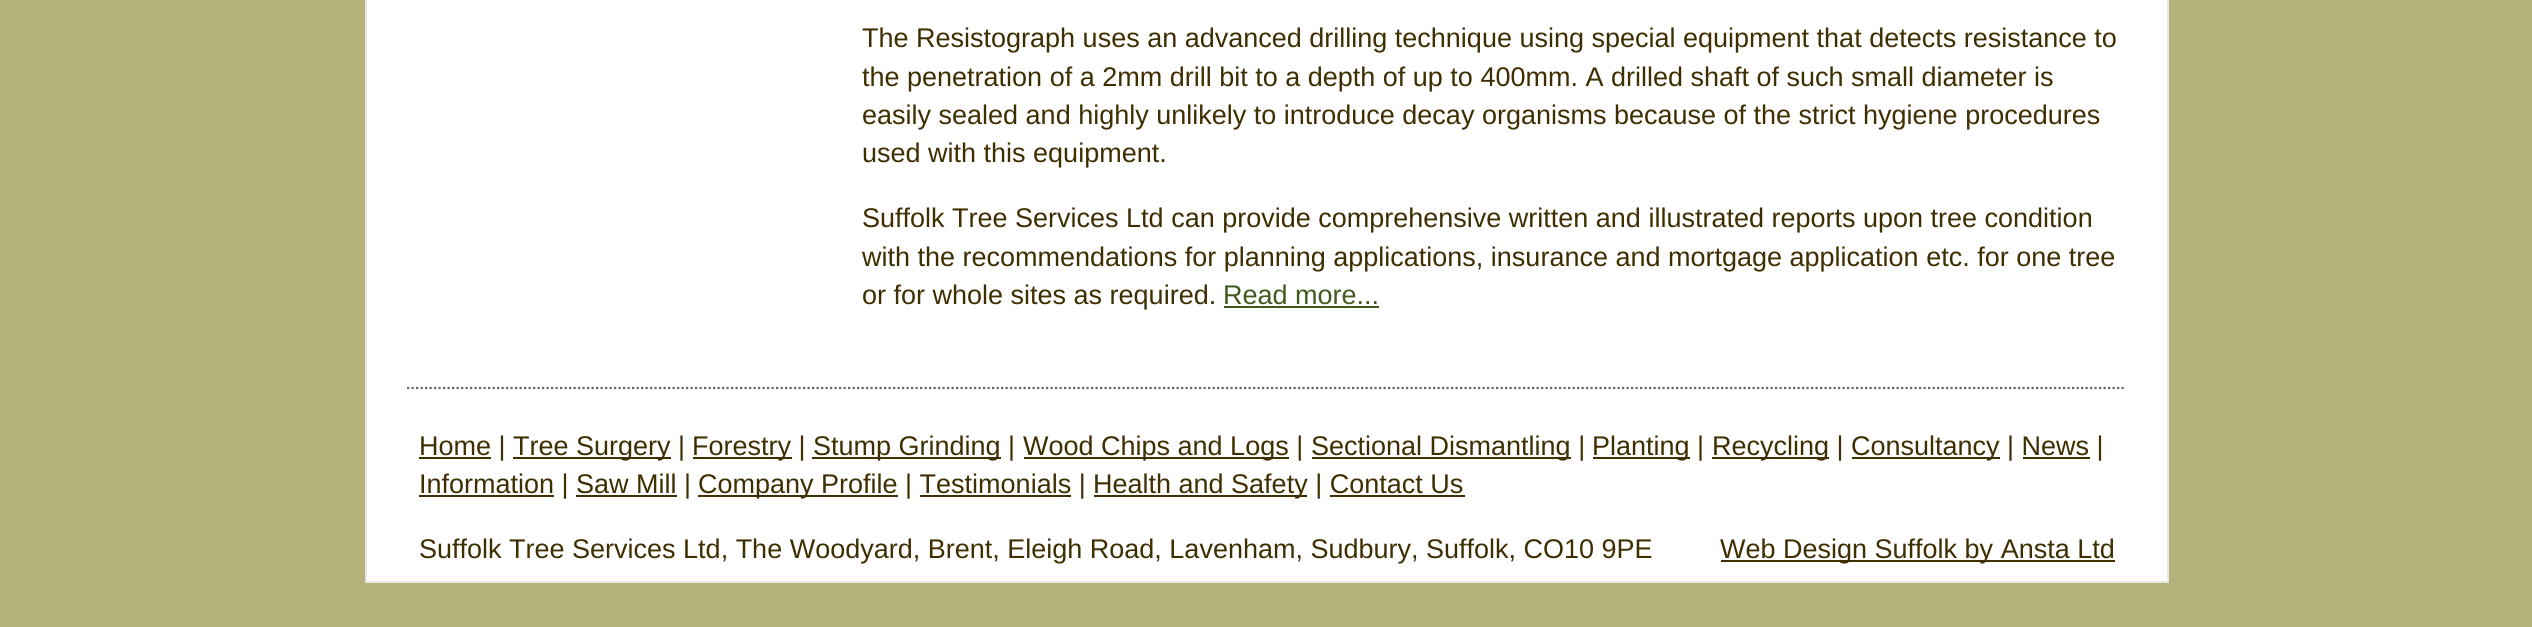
#include <cairo.h>
#include <math.h>
#include <stddef.h>


static void rgb(cairo_t *cr, int r, int g, int b)
{
	cairo_set_source_rgb(cr, r / 255.0, g / 255.0, b / 255.0);
}

static void face(cairo_t *cr, const char *family, double size, int italic, int bold)
{
	cairo_select_font_face(cr, family, italic ? CAIRO_FONT_SLANT_ITALIC : CAIRO_FONT_SLANT_NORMAL,
		bold ? CAIRO_FONT_WEIGHT_BOLD : CAIRO_FONT_WEIGHT_NORMAL);
	cairo_set_font_size(cr, size);
}

static void label(cairo_t *cr, double x, double y, const char *s)
{
	cairo_move_to(cr, x, y);
	cairo_show_text(cr, s);
}

static void rect(cairo_t *cr, double x, double y, double w, double h)
{
	cairo_rectangle(cr, x, y, w, h);
	cairo_fill(cr);
}

static void draw(cairo_t *cr) {
	rgb(cr, 181, 178, 124);
	cairo_paint(cr);
	rgb(cr, 255, 255, 255);
	cairo_rectangle(cr, 366, -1, 1802, 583);
	cairo_fill_preserve(cr);
	rgb(cr, 231, 231, 229);
	cairo_stroke(cr);
	face(cr, "Liberation Sans", 27, 0, 0);
	rgb(cr, 62, 46, 0);
	label(cr, 862, 47, "The Resistograph uses an advanced drilling technique using special equipment that detects resistance to");
	label(cr, 862, 86, "the penetration of a 2mm drill bit to a depth of up to 400mm. A drilled shaft of such small diameter is");
	label(cr, 862, 124, "easily sealed and highly unlikely to introduce decay organisms because of the strict hygiene procedures");
	label(cr, 862, 162, "used with this equipment.");
	label(cr, 862, 227, "Suffolk Tree Services Ltd can provide comprehensive written and illustrated reports upon tree condition");
	label(cr, 862, 266, "with the recommendations for planning applications, insurance and mortgage application etc. for one tree");
	label(cr, 862, 304, "or for whole sites as required.");
	rgb(cr, 66, 89, 29);
	label(cr, 1223, 304, "Read more...");
	rect(cr, 1224, 306, 155, 2);
	cairo_new_path(cr);
	cairo_move_to(cr, 407, 388);
	cairo_line_to(cr, 2126, 388);
	rgb(cr, 102, 102, 102);
	cairo_set_line_width(cr, 2.2);
	cairo_set_dash(cr, (double[]){2.25, 2.25}, 2, 0);
	cairo_stroke(cr);
	rgb(cr, 62, 46, 0);
	rect(cr, 419, 457, 72, 2);
	label(cr, 419, 455, "Home |");
	rect(cr, 513, 457, 158, 2);
	label(cr, 513, 455, "Tree Surgery |");
	rect(cr, 693, 457, 99, 2);
	label(cr, 692, 455, "Forestry |");
	rect(cr, 812, 457, 189, 2);
	label(cr, 813, 455, "Stump Grinding |");
	rect(cr, 1024, 457, 265, 2);
	label(cr, 1023, 455, "Wood Chips and Logs |");
	rect(cr, 1312, 457, 259, 2);
	label(cr, 1311, 455, "Sectional Dismantling |");
	rect(cr, 1593, 457, 97, 2);
	label(cr, 1592, 455, "Planting |");
	rect(cr, 1712, 457, 117, 2);
	label(cr, 1712, 455, "Recycling |");
	rect(cr, 1852, 457, 148, 2);
	label(cr, 1851, 455, "Consultancy | News |");
	rect(cr, 2023, 457, 67, 2);
	rect(cr, 419, 495, 135, 2);
	label(cr, 419, 493, "Information | Saw Mill |");
	rect(cr, 698, 495, 200, 2);
	label(cr, 698, 493, "Company Profile | Testimonials |");
	rect(cr, 1094, 495, 213, 2);
	label(cr, 1093, 493, "Health and Safety | Contact Us");
	rect(cr, 576, 495, 101, 2);
	rect(cr, 920, 495, 151, 2);
	rect(cr, 1330, 495, 135, 2);
	label(cr, 419, 558, "Suffolk Tree Services Ltd, The Woodyard, Brent, Eleigh Road, Lavenham, Sudbury, Suffolk, CO10 9PE");
	rect(cr, 1721, 560, 394, 2);
	label(cr, 1720, 558, "Web Design Suffolk by Ansta Ltd");
}

int main(void) {
	cairo_surface_t *surface = cairo_image_surface_create(CAIRO_FORMAT_RGB24, 2532, 627);
	cairo_t *cr = cairo_create(surface);
	cairo_font_options_t *options = cairo_font_options_create();
	cairo_font_options_set_hint_metrics(options, CAIRO_HINT_METRICS_OFF);
	cairo_font_options_set_hint_style(options, CAIRO_HINT_STYLE_NONE);
	cairo_set_font_options(cr, options);
	cairo_set_miter_limit(cr, 4);
	draw(cr);
	cairo_surface_write_to_png(surface, "render.png");
	cairo_font_options_destroy(options);
	cairo_destroy(cr);
	cairo_surface_destroy(surface);
	return 0;
}
